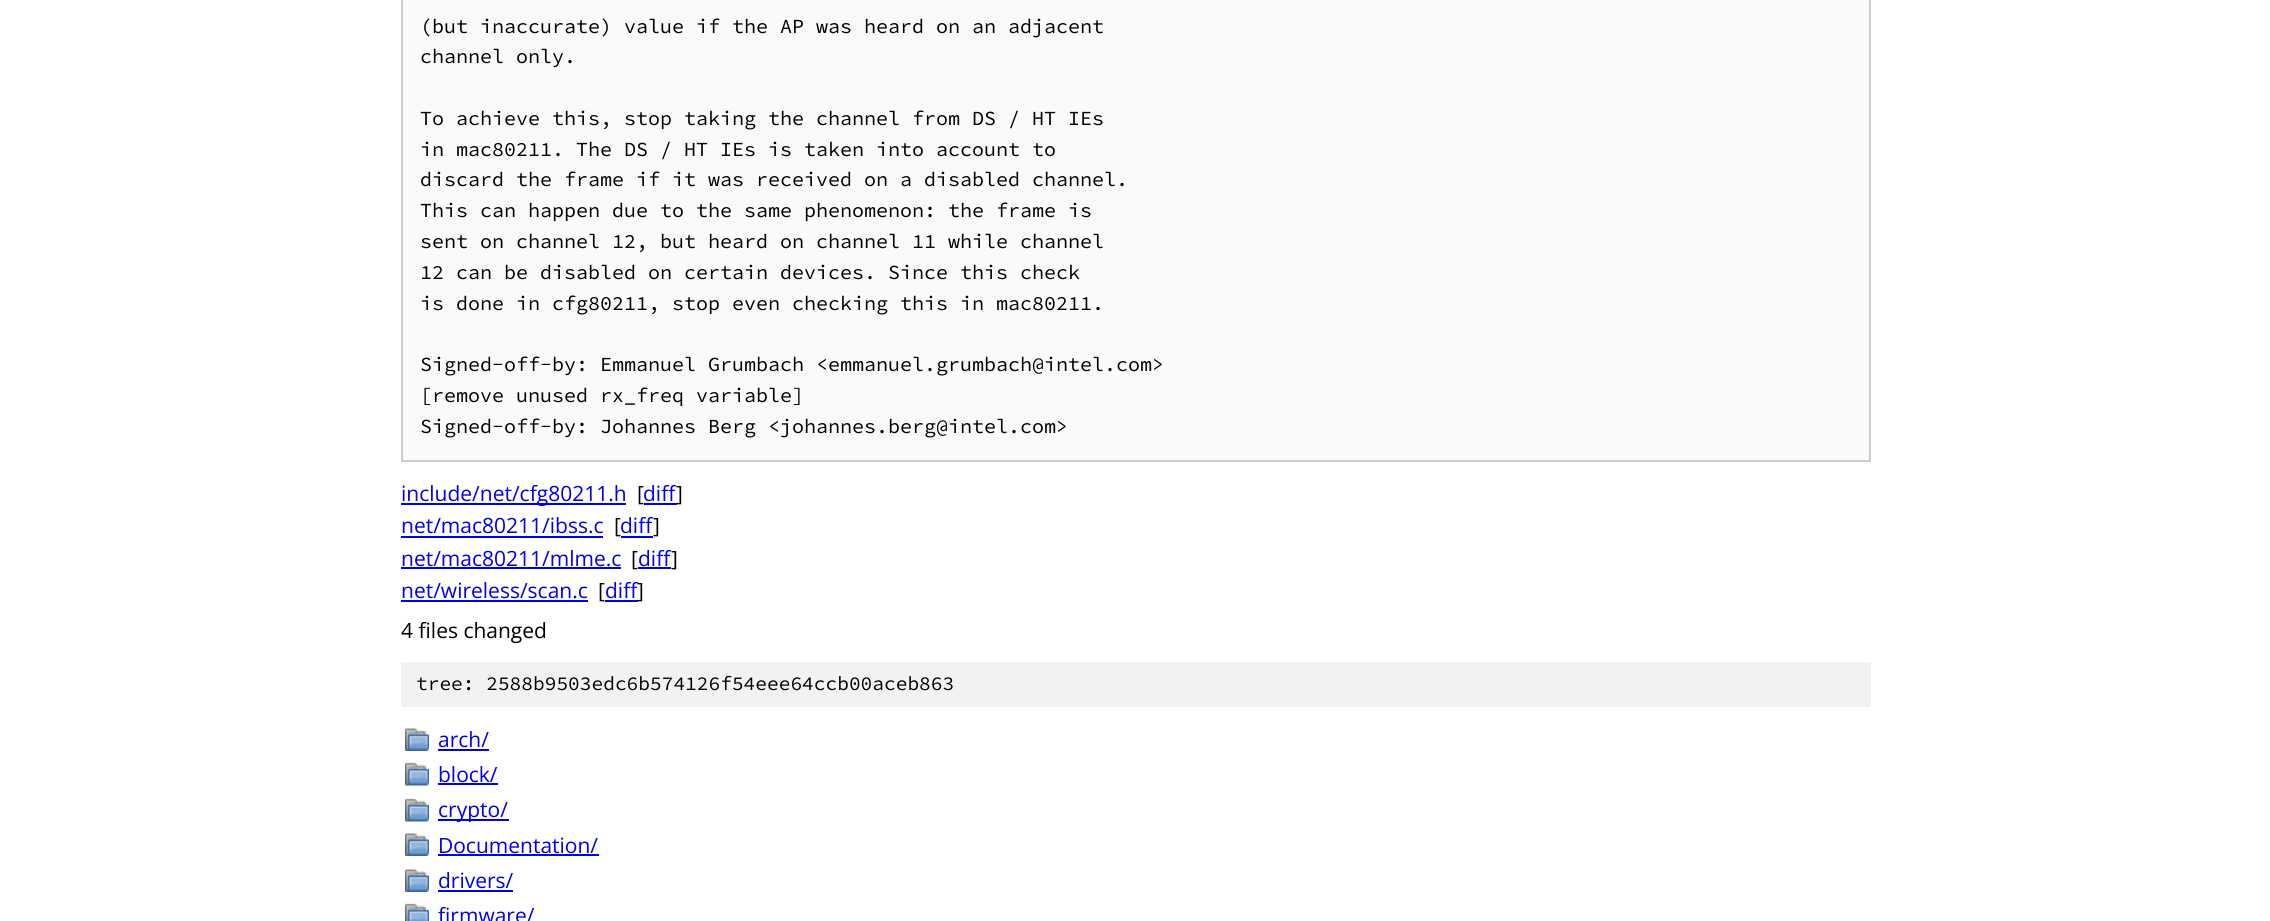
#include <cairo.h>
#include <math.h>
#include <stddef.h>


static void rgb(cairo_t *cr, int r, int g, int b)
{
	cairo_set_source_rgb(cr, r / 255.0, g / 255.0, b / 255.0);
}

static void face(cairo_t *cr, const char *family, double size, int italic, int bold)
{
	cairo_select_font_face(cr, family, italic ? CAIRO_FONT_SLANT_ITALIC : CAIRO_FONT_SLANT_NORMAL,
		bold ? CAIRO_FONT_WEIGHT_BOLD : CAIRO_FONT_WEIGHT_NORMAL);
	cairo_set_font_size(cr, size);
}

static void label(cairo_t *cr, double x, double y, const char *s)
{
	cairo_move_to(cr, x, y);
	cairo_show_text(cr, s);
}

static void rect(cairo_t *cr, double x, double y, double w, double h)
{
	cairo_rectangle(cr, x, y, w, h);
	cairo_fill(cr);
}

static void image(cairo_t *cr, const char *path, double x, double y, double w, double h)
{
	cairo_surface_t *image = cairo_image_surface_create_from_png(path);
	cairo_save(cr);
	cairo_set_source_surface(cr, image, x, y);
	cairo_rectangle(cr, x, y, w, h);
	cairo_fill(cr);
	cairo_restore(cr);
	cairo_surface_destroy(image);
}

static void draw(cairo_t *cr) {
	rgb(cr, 255, 255, 255);
	cairo_paint(cr);
	rgb(cr, 250, 250, 250);
	cairo_rectangle(cr, 402, -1, 1468, 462);
	cairo_fill_preserve(cr);
	rgb(cr, 204, 204, 204);
	cairo_stroke(cr);
	face(cr, "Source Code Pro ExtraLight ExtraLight", 20, 0, 0);
	rgb(cr, 0, 0, 0);
	label(cr, 420, 33, "(but inaccurate) value if the AP was heard on an adjacent");
	label(cr, 420, 63, "channel only.");
	label(cr, 420, 125, "To achieve this, stop taking the channel from DS / HT IEs");
	label(cr, 420, 156, "in mac80211. The DS / HT IEs is taken into account to");
	label(cr, 420, 186, "discard the frame if it was received on a disabled channel.");
	label(cr, 420, 217, "This can happen due to the same phenomenon: the frame is");
	label(cr, 420, 248, "sent on channel 12, but heard on channel 11 while channel");
	label(cr, 420, 279, "12 can be disabled on certain devices. Since this check");
	label(cr, 420, 310, "is done in cfg80211, stop even checking this in mac80211.");
	label(cr, 420, 371, "Signed-off-by: Emmanuel Grumbach <emmanuel.grumbach@intel.com>");
	label(cr, 420, 402, "[remove unused rx_freq variable]");
	label(cr, 420, 433, "Signed-off-by: Johannes Berg <johannes.berg@intel.com>");
	rgb(cr, 0, 0, 238);
	rect(cr, 401, 503, 225, 2);
	face(cr, "Open Sans", 21, 0, 0);
	label(cr, 401, 501, "include/net/cfg80211.h");
	rgb(cr, 0, 0, 0);
	label(cr, 637, 501, "[");
	rgb(cr, 0, 0, 238);
	label(cr, 643, 501, "diff");
	rect(cr, 644, 503, 33, 2);
	rgb(cr, 0, 0, 0);
	label(cr, 676, 501, "]");
	rgb(cr, 0, 0, 238);
	label(cr, 401, 533, "net/mac80211/ibss.c");
	rect(cr, 401, 536, 202, 2);
	rgb(cr, 0, 0, 0);
	label(cr, 614, 533, "[");
	rgb(cr, 0, 0, 238);
	label(cr, 620, 533, "diff");
	rgb(cr, 0, 0, 0);
	label(cr, 653, 533, "]");
	rgb(cr, 0, 0, 238);
	rect(cr, 621, 536, 32, 2);
	label(cr, 401, 566, "net/mac80211/mlme.c");
	rect(cr, 401, 567, 220, 2);
	rgb(cr, 0, 0, 0);
	label(cr, 631, 566, "[");
	rgb(cr, 0, 0, 238);
	rect(cr, 638, 567, 33, 2);
	label(cr, 638, 566, "diff");
	rgb(cr, 0, 0, 0);
	label(cr, 671, 566, "]");
	rgb(cr, 0, 0, 238);
	label(cr, 401, 598, "net/wireless/scan.c");
	rect(cr, 401, 600, 187, 2);
	rgb(cr, 0, 0, 0);
	label(cr, 598, 598, "[");
	rgb(cr, 0, 0, 238);
	rect(cr, 605, 600, 33, 2);
	label(cr, 605, 598, "diff");
	rgb(cr, 0, 0, 0);
	label(cr, 637, 598, "]");
	label(cr, 401, 638, "4 files changed");
	rgb(cr, 241, 242, 243);
	rect(cr, 401, 662, 1470, 45);
	face(cr, "Source Code Pro ExtraLight ExtraLight", 19.5, 0, 0);
	rgb(cr, 0, 0, 0);
	label(cr, 416, 690, "tree: 2588b9503edc6b574126f54eee64ccb00aceb863");
	image(cr, "image0.png", 405, 728, 24, 23);
	face(cr, "Open Sans", 21, 0, 0);
	rgb(cr, 0, 0, 238);
	label(cr, 438, 747, "arch/");
	rect(cr, 438, 749, 51, 2);
	image(cr, "image1.png", 405, 762, 24, 24);
	label(cr, 438, 782, "block/");
	rect(cr, 438, 783, 60, 2);
	image(cr, "image1.png", 405, 798, 24, 24);
	rect(cr, 438, 819, 71, 2);
	label(cr, 438, 817, "crypto/");
	image(cr, "image0.png", 405, 833, 24, 23);
	label(cr, 438, 853, "Documentation/");
	rect(cr, 438, 854, 161, 2);
	image(cr, "image0.png", 405, 869, 24, 23);
	label(cr, 438, 888, "drivers/");
	rect(cr, 438, 890, 75, 2);
	image(cr, "image2.png", 405, 903, 24, 18);
	label(cr, 438, 923, "firmware/");
}

int main(void) {
	cairo_surface_t *surface = cairo_image_surface_create(CAIRO_FORMAT_RGB24, 2270, 921);
	cairo_t *cr = cairo_create(surface);
	cairo_font_options_t *options = cairo_font_options_create();
	cairo_font_options_set_hint_metrics(options, CAIRO_HINT_METRICS_OFF);
	cairo_font_options_set_hint_style(options, CAIRO_HINT_STYLE_NONE);
	cairo_set_font_options(cr, options);
	cairo_set_miter_limit(cr, 4);
	draw(cr);
	cairo_surface_write_to_png(surface, "render.png");
	cairo_font_options_destroy(options);
	cairo_destroy(cr);
	cairo_surface_destroy(surface);
	return 0;
}
